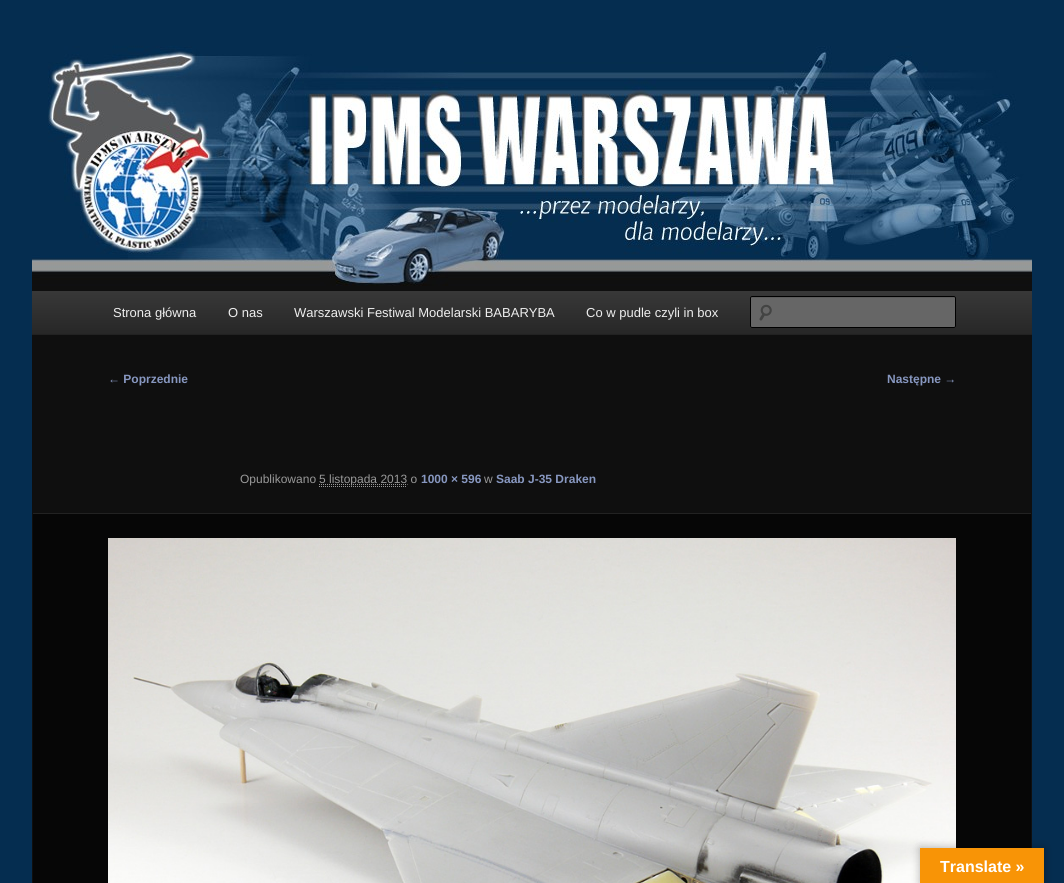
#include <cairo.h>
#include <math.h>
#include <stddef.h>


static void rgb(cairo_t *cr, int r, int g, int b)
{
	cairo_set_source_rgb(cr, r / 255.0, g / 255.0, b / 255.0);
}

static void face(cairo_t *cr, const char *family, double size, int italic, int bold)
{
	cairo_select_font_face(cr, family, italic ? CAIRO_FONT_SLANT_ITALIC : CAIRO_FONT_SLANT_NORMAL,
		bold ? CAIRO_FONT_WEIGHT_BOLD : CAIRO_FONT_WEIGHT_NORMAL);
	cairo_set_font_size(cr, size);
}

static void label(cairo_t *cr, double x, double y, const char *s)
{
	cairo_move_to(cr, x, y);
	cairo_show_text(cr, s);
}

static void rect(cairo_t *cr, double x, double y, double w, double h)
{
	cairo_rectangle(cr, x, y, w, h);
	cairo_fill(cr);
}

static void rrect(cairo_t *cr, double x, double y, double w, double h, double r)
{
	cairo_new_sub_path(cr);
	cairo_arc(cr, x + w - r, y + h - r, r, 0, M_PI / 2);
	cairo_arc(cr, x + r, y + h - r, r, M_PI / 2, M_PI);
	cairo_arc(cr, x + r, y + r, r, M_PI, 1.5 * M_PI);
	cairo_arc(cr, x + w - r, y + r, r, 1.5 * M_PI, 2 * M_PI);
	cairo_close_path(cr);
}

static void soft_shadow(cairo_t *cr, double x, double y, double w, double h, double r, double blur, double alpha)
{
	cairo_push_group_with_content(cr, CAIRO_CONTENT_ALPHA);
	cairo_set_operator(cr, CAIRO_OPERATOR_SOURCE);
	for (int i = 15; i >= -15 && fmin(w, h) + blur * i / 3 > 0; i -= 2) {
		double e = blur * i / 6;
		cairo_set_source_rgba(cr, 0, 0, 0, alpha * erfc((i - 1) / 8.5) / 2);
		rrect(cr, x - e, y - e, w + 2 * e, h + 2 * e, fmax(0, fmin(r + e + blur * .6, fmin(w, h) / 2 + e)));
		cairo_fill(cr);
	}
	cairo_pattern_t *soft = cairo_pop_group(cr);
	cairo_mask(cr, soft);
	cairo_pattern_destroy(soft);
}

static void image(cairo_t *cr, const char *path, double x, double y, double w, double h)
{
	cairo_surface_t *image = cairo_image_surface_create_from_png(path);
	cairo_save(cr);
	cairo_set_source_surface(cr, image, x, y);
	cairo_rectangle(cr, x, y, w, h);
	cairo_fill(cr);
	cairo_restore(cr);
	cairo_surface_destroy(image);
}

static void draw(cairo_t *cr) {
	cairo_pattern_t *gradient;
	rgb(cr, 5, 45, 80);
	cairo_paint(cr);
	rgb(cr, 15, 15, 15);
	rect(cr, 32, 286, 1000, 597);
	image(cr, "image0.png", 32, 30, 1000, 256);
	gradient = cairo_pattern_create_linear(532, 291, 532, 334);
	cairo_pattern_add_color_stop_rgba(gradient, 0, 0.22, 0.22, 0.22, 1);
	cairo_pattern_add_color_stop_rgba(gradient, 1, 0.153, 0.153, 0.153, 1);
	cairo_set_source(cr, gradient);
	cairo_pattern_destroy(gradient);
	rect(cr, 32, 291, 1000, 43);
	rgb(cr, 34, 34, 34);
	rect(cr, 32, 334, 1000, 1);
	face(cr, "Liberation Sans", 13, 0, 0);
	rgb(cr, 238, 238, 238);
	label(cr, 113, 317, "Strona główna");
	label(cr, 228, 317, "O nas");
	label(cr, 294, 317, "Warszawski Festiwal Modelarski BABARYBA");
	label(cr, 586, 317, "Co w pudle czyli in box");
	rgb(cr, 102, 102, 102);
	rrect(cr, 750, 296, 206, 32, 2);
	cairo_fill(cr);
	image(cr, "image1.png", 759, 304, 13, 17);
	rgb(cr, 92, 92, 92);
	cairo_new_path(cr);
	cairo_move_to(cr, 752, 298);
	cairo_line_to(cr, 955, 298);
	cairo_line_to(cr, 955, 299);
	cairo_line_to(cr, 955, 297);
	cairo_line_to(cr, 954, 297);
	cairo_line_to(cr, 752, 297);
	cairo_curve_to(cr, 751, 297, 751, 298, 751, 299);
	cairo_curve_to(cr, 751, 298, 751, 298, 752, 298);
	cairo_close_path(cr);
	cairo_fill(cr);
	rrect(cr, 750.5, 296.5, 205, 31, 1.5);
	rgb(cr, 0, 0, 0);
	cairo_set_line_width(cr, 1);
	cairo_stroke(cr);
	face(cr, "Liberation Sans", 12, 0, 1);
	rgb(cr, 135, 151, 192);
	label(cr, 108, 383, "← Poprzednie");
	label(cr, 887, 383, "Następne →");
	face(cr, "Liberation Sans", 12, 0, 0);
	rgb(cr, 153, 153, 153);
	label(cr, 240, 483, "Opublikowano");
	cairo_new_path(cr);
	cairo_move_to(cr, 319, 484.5);
	cairo_line_to(cr, 407.5, 484.5);
	cairo_set_dash(cr, (double[]){1, 1}, 2, 0);
	cairo_stroke(cr);
	label(cr, 319, 483, "5 listopada 2013 o");
	cairo_new_path(cr);
	cairo_move_to(cr, 319, 486.5);
	cairo_line_to(cr, 407, 486.5);
	cairo_stroke(cr);
	face(cr, "Liberation Sans", 12, 0, 1);
	rgb(cr, 135, 151, 192);
	label(cr, 421, 483, "1000 × 596");
	face(cr, "Liberation Sans", 12, 0, 0);
	rgb(cr, 153, 153, 153);
	label(cr, 484, 483, "w");
	face(cr, "Liberation Sans", 12, 0, 1);
	rgb(cr, 135, 151, 192);
	label(cr, 496, 483, "Saab J-35 Draken");
	rgb(cr, 6, 6, 6);
	rect(cr, 33, 514, 998, 369);
	rgb(cr, 34, 34, 34);
	rect(cr, 33, 513, 998, 1);
	image(cr, "image2.png", 108, 538, 848, 345);
	rgb(cr, 0, 0, 0);
	soft_shadow(cr, 920, 848, 124, 35, 0, 4.5, 0.3);
	rgb(cr, 248, 148, 6);
	rect(cr, 920, 848, 124, 35);
	face(cr, "Liberation Sans", 16, 0, 1);
	rgb(cr, 255, 255, 255);
	label(cr, 940, 872, "Translate »");
}

int main(void) {
	cairo_surface_t *surface = cairo_image_surface_create(CAIRO_FORMAT_RGB24, 1064, 883);
	cairo_t *cr = cairo_create(surface);
	cairo_font_options_t *options = cairo_font_options_create();
	cairo_font_options_set_hint_metrics(options, CAIRO_HINT_METRICS_OFF);
	cairo_font_options_set_hint_style(options, CAIRO_HINT_STYLE_NONE);
	cairo_set_font_options(cr, options);
	cairo_set_miter_limit(cr, 4);
	draw(cr);
	cairo_surface_write_to_png(surface, "render.png");
	cairo_font_options_destroy(options);
	cairo_destroy(cr);
	cairo_surface_destroy(surface);
	return 0;
}
